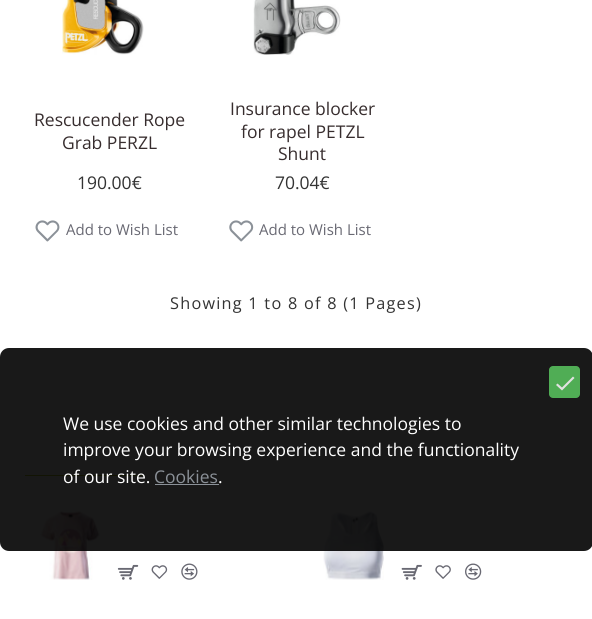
#include <cairo.h>
#include <math.h>
#include <stddef.h>


static void rgb(cairo_t *cr, int r, int g, int b)
{
	cairo_set_source_rgb(cr, r / 255.0, g / 255.0, b / 255.0);
}

static void face(cairo_t *cr, const char *family, double size, int italic, int bold)
{
	cairo_select_font_face(cr, family, italic ? CAIRO_FONT_SLANT_ITALIC : CAIRO_FONT_SLANT_NORMAL,
		bold ? CAIRO_FONT_WEIGHT_BOLD : CAIRO_FONT_WEIGHT_NORMAL);
	cairo_set_font_size(cr, size);
}

static void label(cairo_t *cr, double x, double y, const char *s)
{
	cairo_move_to(cr, x, y);
	cairo_show_text(cr, s);
}

static void tracked(cairo_t *cr, double x, double y, const char *s, double letter, double word)
{
	cairo_move_to(cr, x, y);
	while (*s) {
		char ch[5] = {0};
		int n = 0;
		do ch[n++] = *s++; while ((*s & 0xC0) == 0x80);
		cairo_show_text(cr, ch);
		cairo_rel_move_to(cr, letter + word * (*ch == ' '), 0);
	}
}

static void rect(cairo_t *cr, double x, double y, double w, double h)
{
	cairo_rectangle(cr, x, y, w, h);
	cairo_fill(cr);
}

static void rrect(cairo_t *cr, double x, double y, double w, double h, double r)
{
	cairo_new_sub_path(cr);
	cairo_arc(cr, x + w - r, y + h - r, r, 0, M_PI / 2);
	cairo_arc(cr, x + r, y + h - r, r, M_PI / 2, M_PI);
	cairo_arc(cr, x + r, y + r, r, M_PI, 1.5 * M_PI);
	cairo_arc(cr, x + w - r, y + r, r, 1.5 * M_PI, 2 * M_PI);
	cairo_close_path(cr);
}

static void image(cairo_t *cr, const char *path, double x, double y, double w, double h)
{
	cairo_surface_t *image = cairo_image_surface_create_from_png(path);
	cairo_save(cr);
	cairo_set_source_surface(cr, image, x, y);
	cairo_rectangle(cr, x, y, w, h);
	cairo_fill(cr);
	cairo_restore(cr);
	cairo_surface_destroy(image);
}

static void draw(cairo_t *cr) {
	rgb(cr, 255, 255, 255);
	cairo_paint(cr);
	image(cr, "image0.png", 62, 0, 82, 55);
	face(cr, "Open Sans", 17.5, 0, 0);
	rgb(cr, 55, 45, 46);
	label(cr, 34, 126, "Rescucender Rope");
	label(cr, 62, 149, "Grab PERZL");
	rgb(cr, 51, 51, 51);
	label(cr, 77, 189, "190.00€");
	image(cr, "image1.png", 35, 220, 25, 22);
	face(cr, "Open Sans", 15, 0, 0);
	rgb(cr, 105, 105, 115);
	label(cr, 66, 235, "Add to Wish List");
	image(cr, "image2.png", 253, 0, 88, 55);
	face(cr, "Open Sans", 17.5, 0, 0);
	rgb(cr, 55, 45, 46);
	label(cr, 230, 115, "Insurance blocker");
	label(cr, 241, 138, "for rapel PETZL");
	label(cr, 278, 160, "Shunt");
	rgb(cr, 51, 51, 51);
	label(cr, 275, 189, "70.04€");
	image(cr, "image3.png", 229, 220, 25, 22);
	face(cr, "Open Sans", 15, 0, 0);
	rgb(cr, 105, 105, 115);
	label(cr, 259, 235, "Add to Wish List");
	face(cr, "Open Sans", 16.25, 0, 0);
	rgb(cr, 51, 51, 51);
	tracked(cr, 170, 309, "Showing 1 to 8 of 8 (1 Pages)", 1.25, 0);
	rgb(cr, 185, 202, 38);
	rect(cr, 25, 475, 119, 1);
	image(cr, "image4.png", 40, 509, 60, 71);
	image(cr, "image5.png", 117, 564, 22, 16);
	image(cr, "image6.png", 151, 565, 17, 14);
	image(cr, "image7.png", 181, 563, 17, 17);
	image(cr, "image8.png", 323, 510, 61, 70);
	image(cr, "image9.png", 401, 564, 21, 16);
	image(cr, "image10.png", 435, 565, 16, 14);
	image(cr, "image11.png", 465, 563, 17, 17);
	cairo_set_source_rgba(cr, 0, 0, 0, 0.9);
	rrect(cr, 0, 348, 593, 203, 9);
	cairo_fill(cr);
	rgb(cr, 80, 173, 85);
	rrect(cr, 549, 366, 31, 32, 4);
	cairo_fill(cr);
	rgb(cr, 226, 226, 226);
	cairo_new_path(cr);
	cairo_move_to(cr, 562, 387.5);
	cairo_line_to(cr, 573, 376.5);
	cairo_line_to(cr, 574.5, 378);
	cairo_line_to(cr, 562, 390.5);
	cairo_line_to(cr, 556, 385);
	cairo_line_to(cr, 557.5, 383.5);
	cairo_close_path(cr);
	cairo_fill(cr);
	face(cr, "Open Sans", 17.5, 0, 0);
	rgb(cr, 255, 255, 255);
	label(cr, 63, 430, "We use cookies and other similar technologies to");
	label(cr, 63, 456, "improve your browsing experience and the functionality");
	label(cr, 63, 483, "of our site.");
	rgb(cr, 139, 145, 152);
	label(cr, 154, 483, "Cookies");
	rect(cr, 155, 484, 64, 1);
	rgb(cr, 255, 255, 255);
	label(cr, 218, 483, ".");
}

int main(void) {
	cairo_surface_t *surface = cairo_image_surface_create(CAIRO_FORMAT_RGB24, 592, 619);
	cairo_t *cr = cairo_create(surface);
	cairo_font_options_t *options = cairo_font_options_create();
	cairo_font_options_set_hint_metrics(options, CAIRO_HINT_METRICS_OFF);
	cairo_font_options_set_hint_style(options, CAIRO_HINT_STYLE_NONE);
	cairo_set_font_options(cr, options);
	cairo_set_miter_limit(cr, 4);
	draw(cr);
	cairo_surface_write_to_png(surface, "render.png");
	cairo_font_options_destroy(options);
	cairo_destroy(cr);
	cairo_surface_destroy(surface);
	return 0;
}
